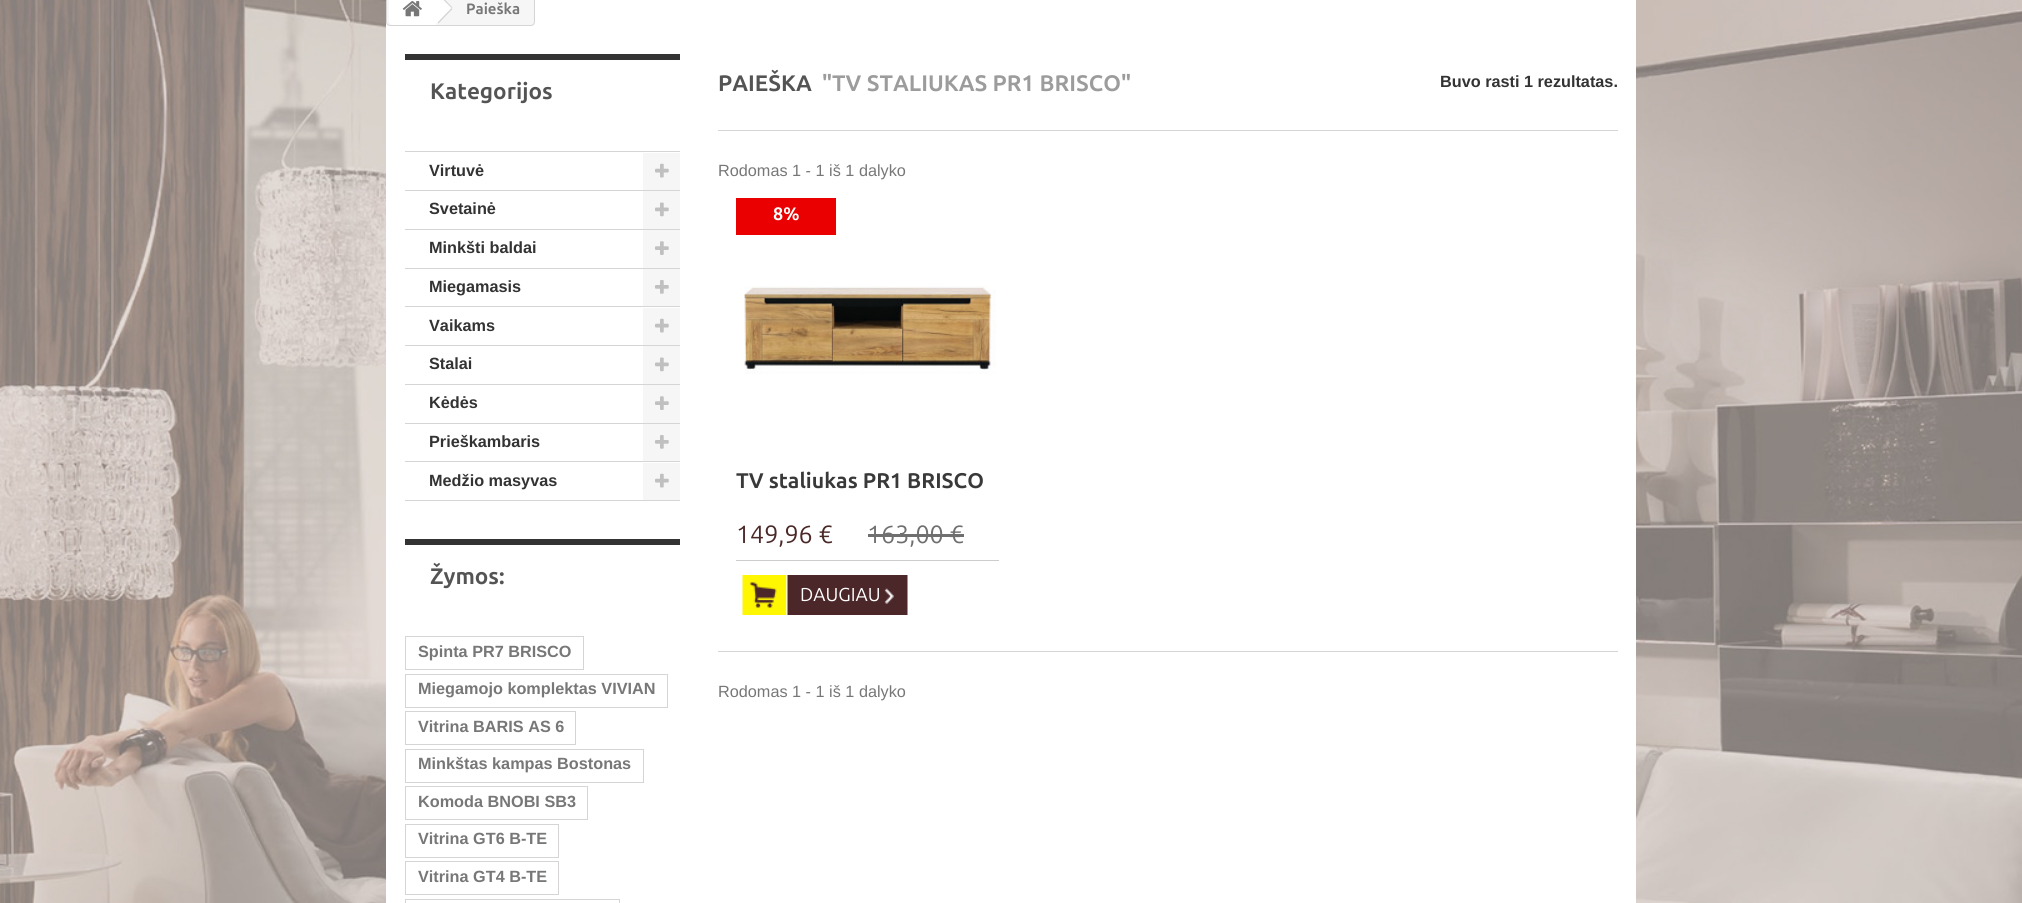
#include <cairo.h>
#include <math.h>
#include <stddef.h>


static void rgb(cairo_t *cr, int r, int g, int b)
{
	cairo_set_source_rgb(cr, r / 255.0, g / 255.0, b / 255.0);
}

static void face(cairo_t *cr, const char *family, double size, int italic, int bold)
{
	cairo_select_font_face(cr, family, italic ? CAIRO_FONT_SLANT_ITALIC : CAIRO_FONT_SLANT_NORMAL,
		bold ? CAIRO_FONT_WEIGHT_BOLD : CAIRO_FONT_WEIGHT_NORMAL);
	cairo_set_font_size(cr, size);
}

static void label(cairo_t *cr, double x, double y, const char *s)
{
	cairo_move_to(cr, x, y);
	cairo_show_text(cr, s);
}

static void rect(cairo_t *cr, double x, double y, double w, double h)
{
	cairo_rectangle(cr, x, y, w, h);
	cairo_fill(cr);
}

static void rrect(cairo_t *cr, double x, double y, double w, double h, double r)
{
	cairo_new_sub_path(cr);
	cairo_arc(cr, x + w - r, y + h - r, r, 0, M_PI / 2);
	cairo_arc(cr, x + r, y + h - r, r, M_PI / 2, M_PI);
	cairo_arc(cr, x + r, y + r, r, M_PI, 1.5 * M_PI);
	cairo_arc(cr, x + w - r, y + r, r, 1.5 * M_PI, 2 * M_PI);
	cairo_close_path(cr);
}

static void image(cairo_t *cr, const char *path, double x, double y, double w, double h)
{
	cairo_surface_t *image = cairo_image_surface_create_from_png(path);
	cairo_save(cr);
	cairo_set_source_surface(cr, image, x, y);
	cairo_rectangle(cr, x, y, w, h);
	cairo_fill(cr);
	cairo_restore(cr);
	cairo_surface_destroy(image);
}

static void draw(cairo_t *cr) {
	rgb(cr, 255, 255, 255);
	cairo_paint(cr);
	image(cr, "image0.png", 0, 0, 2022, 903);
	rgb(cr, 255, 255, 255);
	rect(cr, 386, 0, 1250, 903);
	rgb(cr, 246, 246, 246);
	rrect(cr, 386.5, -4.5, 148, 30, 3.5);
	cairo_fill_preserve(cr);
	rgb(cr, 214, 212, 212);
	cairo_set_line_width(cr, 1);
	cairo_stroke(cr);
	rgb(cr, 255, 255, 255);
	cairo_new_path(cr);
	cairo_move_to(cr, 393, -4);
	cairo_line_to(cr, 436, -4);
	cairo_line_to(cr, 436, 25);
	cairo_line_to(cr, 393, 25);
	cairo_curve_to(cr, 391, 25, 389, 23, 389, 21);
	cairo_line_to(cr, 389, 0);
	cairo_curve_to(cr, 389, -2, 391, -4, 393, -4);
	cairo_close_path(cr);
	cairo_fill(cr);
	image(cr, "image1.png", 402, 1, 20, 16);
	cairo_new_path(cr);
	cairo_move_to(cr, 439.5, -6);
	cairo_line_to(cr, 435.5, -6);
	cairo_line_to(cr, 423.5, 6.5);
	cairo_curve_to(cr, 422.5, 7.5, 422.5, 9, 423.5, 10);
	cairo_line_to(cr, 435.5, 22.5);
	cairo_curve_to(cr, 436.5, 23.5, 438.5, 23.5, 439.5, 22.5);
	cairo_line_to(cr, 451.5, 10);
	cairo_curve_to(cr, 452.5, 9, 452.5, 7.5, 451.5, 6.5);
	cairo_close_path(cr);
	cairo_fill(cr);
	rgb(cr, 214, 212, 212);
	cairo_new_path(cr);
	cairo_move_to(cr, 439.5, -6);
	cairo_line_to(cr, 452.5, 7.5);
	cairo_line_to(cr, 451.5, 8);
	cairo_line_to(cr, 437.5, -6);
	cairo_close_path(cr);
	cairo_move_to(cr, 451.5, 8);
	cairo_line_to(cr, 452.5, 9);
	cairo_line_to(cr, 438.5, 23.5);
	cairo_line_to(cr, 437.5, 22.5);
	cairo_close_path(cr);
	cairo_fill(cr);
	face(cr, "Ubuntu", 15, 0, 1);
	rgb(cr, 119, 119, 119);
	label(cr, 466, 14, "Paieška");
	rgb(cr, 51, 51, 51);
	rect(cr, 405, 54, 275, 6);
	face(cr, "Ubuntu", 22.5, 0, 1);
	rgb(cr, 85, 84, 84);
	label(cr, 430, 99, "Kategorijos");
	rgb(cr, 214, 212, 212);
	rect(cr, 405, 151, 275, 1);
	rect(cr, 405, 190, 275, 1);
	face(cr, "Liberation Sans", 16.25, 0, 1);
	rgb(cr, 51, 51, 51);
	label(cr, 429, 176, "Virtuvė");
	rgb(cr, 246, 246, 246);
	rect(cr, 643, 153, 37, 37);
	image(cr, "image2.png", 655, 163, 14, 15);
	rgb(cr, 214, 212, 212);
	rect(cr, 405, 229, 275, 1);
	rgb(cr, 51, 51, 51);
	label(cr, 429, 214, "Svetainė");
	rgb(cr, 246, 246, 246);
	rect(cr, 643, 191, 37, 38);
	image(cr, "image3.png", 655, 202, 14, 15);
	rgb(cr, 214, 212, 212);
	rect(cr, 405, 268, 275, 1);
	rgb(cr, 51, 51, 51);
	label(cr, 429, 253, "Minkšti baldai");
	rgb(cr, 246, 246, 246);
	rect(cr, 643, 230, 37, 38);
	image(cr, "image4.png", 655, 241, 14, 14);
	rgb(cr, 214, 212, 212);
	rect(cr, 405, 306, 275, 1);
	rgb(cr, 51, 51, 51);
	label(cr, 429, 292, "Miegamasis");
	rgb(cr, 246, 246, 246);
	rect(cr, 643, 269, 37, 37);
	image(cr, "image5.png", 655, 280, 14, 14);
	rgb(cr, 214, 212, 212);
	rect(cr, 405, 345, 275, 1);
	rgb(cr, 51, 51, 51);
	label(cr, 429, 331, "Vaikams");
	rgb(cr, 246, 246, 246);
	rect(cr, 643, 308, 37, 37);
	image(cr, "image2.png", 655, 318, 14, 15);
	rgb(cr, 214, 212, 212);
	rect(cr, 405, 384, 275, 1);
	rgb(cr, 51, 51, 51);
	label(cr, 429, 369, "Stalai");
	rgb(cr, 246, 246, 246);
	rect(cr, 643, 346, 37, 38);
	image(cr, "image3.png", 655, 357, 14, 15);
	rgb(cr, 214, 212, 212);
	rect(cr, 405, 423, 275, 1);
	rgb(cr, 51, 51, 51);
	label(cr, 429, 408, "Kėdės");
	rgb(cr, 246, 246, 246);
	rect(cr, 643, 385, 37, 38);
	image(cr, "image4.png", 655, 396, 14, 14);
	rgb(cr, 214, 212, 212);
	rect(cr, 405, 461, 275, 1);
	rgb(cr, 51, 51, 51);
	label(cr, 429, 447, "Prieškambaris");
	rgb(cr, 246, 246, 246);
	rect(cr, 643, 424, 37, 37);
	image(cr, "image5.png", 655, 435, 14, 14);
	rgb(cr, 214, 212, 212);
	rect(cr, 405, 500, 275, 1);
	rgb(cr, 51, 51, 51);
	label(cr, 429, 486, "Medžio masyvas");
	rgb(cr, 246, 246, 246);
	rect(cr, 643, 463, 37, 37);
	image(cr, "image2.png", 655, 473, 14, 15);
	rgb(cr, 51, 51, 51);
	rect(cr, 405, 539, 275, 6);
	face(cr, "Ubuntu", 22.5, 0, 1);
	rgb(cr, 85, 84, 84);
	label(cr, 430, 584, "Žymos:");
	cairo_rectangle(cr, 405.5, 636.5, 178, 33);
	rgb(cr, 214, 212, 212);
	cairo_stroke(cr);
	face(cr, "Liberation Sans", 16.25, 0, 1);
	rgb(cr, 119, 119, 119);
	label(cr, 418, 657, "Spinta PR7 BRISCO");
	cairo_rectangle(cr, 405.5, 674.5, 262, 33);
	rgb(cr, 214, 212, 212);
	cairo_stroke(cr);
	rgb(cr, 119, 119, 119);
	label(cr, 418, 694, "Miegamojo komplektas VIVIAN");
	cairo_rectangle(cr, 405.5, 711.5, 170, 33);
	rgb(cr, 214, 212, 212);
	cairo_stroke(cr);
	rgb(cr, 119, 119, 119);
	label(cr, 418, 732, "Vitrina BARIS AS 6");
	cairo_rectangle(cr, 405.5, 749.5, 238, 33);
	rgb(cr, 214, 212, 212);
	cairo_stroke(cr);
	rgb(cr, 119, 119, 119);
	label(cr, 418, 769, "Minkštas kampas Bostonas");
	cairo_rectangle(cr, 405.5, 786.5, 182, 33);
	rgb(cr, 214, 212, 212);
	cairo_stroke(cr);
	rgb(cr, 119, 119, 119);
	label(cr, 418, 807, "Komoda BNOBI SB3");
	cairo_rectangle(cr, 405.5, 824.5, 153, 33);
	rgb(cr, 214, 212, 212);
	cairo_stroke(cr);
	rgb(cr, 119, 119, 119);
	label(cr, 418, 844, "Vitrina GT6 B-TE");
	cairo_rectangle(cr, 405.5, 861.5, 153, 33);
	rgb(cr, 214, 212, 212);
	cairo_stroke(cr);
	rgb(cr, 119, 119, 119);
	label(cr, 418, 882, "Vitrina GT4 B-TE");
	cairo_rectangle(cr, 405.5, 899.5, 214, 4);
	rgb(cr, 214, 212, 212);
	cairo_stroke(cr);
	face(cr, "Ubuntu", 22.5, 0, 1);
	rgb(cr, 85, 84, 84);
	label(cr, 718, 91, "PAIEŠKA");
	rgb(cr, 156, 156, 156);
	label(cr, 822, 91, "\"TV STALIUKAS PR1 BRISCO\"");
	face(cr, "Liberation Sans", 16.25, 0, 1);
	rgb(cr, 51, 51, 51);
	label(cr, 1440, 87, "Buvo rasti 1 rezultatas.");
	rgb(cr, 214, 212, 212);
	rect(cr, 718, 130, 900, 1);
	face(cr, "Liberation Sans", 16.25, 0, 0);
	rgb(cr, 119, 119, 119);
	label(cr, 718, 176, "Rodomas 1 - 1 iš 1 dalyko");
	rgb(cr, 234, 0, 0);
	rect(cr, 736, 198, 100, 37);
	face(cr, "Ubuntu", 18, 0, 1);
	rgb(cr, 255, 255, 255);
	label(cr, 773, 220, "8%");
	image(cr, "image6.png", 744, 286, 252, 88);
	face(cr, "Ubuntu", 21.25, 0, 1);
	rgb(cr, 58, 57, 57);
	label(cr, 736, 488, "TV staliukas PR1 BRISCO");
	rgb(cr, 204, 204, 204);
	rect(cr, 736, 560, 263, 1);
	face(cr, "Ubuntu", 25, 0, 0);
	rgb(cr, 74, 40, 39);
	label(cr, 736, 543, "149,96 €");
	rgb(cr, 111, 111, 111);
	label(cr, 867, 543, "163,00 €");
	rect(cr, 868, 534, 96, 3);
	image(cr, "image7.png", 742, 575, 45, 40);
	image(cr, "image8.png", 787, 575, 121, 40);
	face(cr, "Ubuntu", 18.75, 0, 0);
	rgb(cr, 255, 255, 255);
	label(cr, 800, 601, "DAUGIAU");
	rgb(cr, 214, 212, 212);
	rect(cr, 718, 651, 900, 1);
	face(cr, "Liberation Sans", 16.25, 0, 0);
	rgb(cr, 119, 119, 119);
	label(cr, 718, 697, "Rodomas 1 - 1 iš 1 dalyko");
}

int main(void) {
	cairo_surface_t *surface = cairo_image_surface_create(CAIRO_FORMAT_RGB24, 2022, 903);
	cairo_t *cr = cairo_create(surface);
	cairo_font_options_t *options = cairo_font_options_create();
	cairo_font_options_set_hint_metrics(options, CAIRO_HINT_METRICS_OFF);
	cairo_font_options_set_hint_style(options, CAIRO_HINT_STYLE_NONE);
	cairo_set_font_options(cr, options);
	cairo_set_miter_limit(cr, 4);
	draw(cr);
	cairo_surface_write_to_png(surface, "render.png");
	cairo_font_options_destroy(options);
	cairo_destroy(cr);
	cairo_surface_destroy(surface);
	return 0;
}
